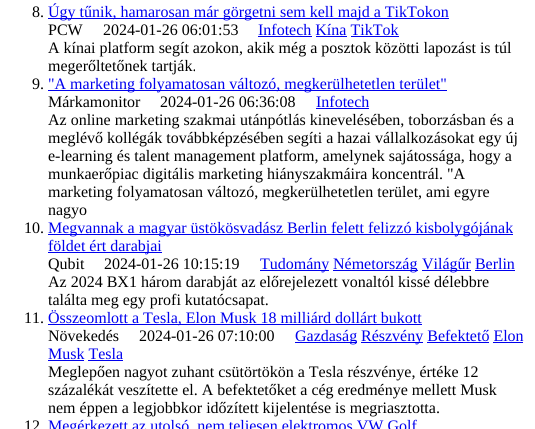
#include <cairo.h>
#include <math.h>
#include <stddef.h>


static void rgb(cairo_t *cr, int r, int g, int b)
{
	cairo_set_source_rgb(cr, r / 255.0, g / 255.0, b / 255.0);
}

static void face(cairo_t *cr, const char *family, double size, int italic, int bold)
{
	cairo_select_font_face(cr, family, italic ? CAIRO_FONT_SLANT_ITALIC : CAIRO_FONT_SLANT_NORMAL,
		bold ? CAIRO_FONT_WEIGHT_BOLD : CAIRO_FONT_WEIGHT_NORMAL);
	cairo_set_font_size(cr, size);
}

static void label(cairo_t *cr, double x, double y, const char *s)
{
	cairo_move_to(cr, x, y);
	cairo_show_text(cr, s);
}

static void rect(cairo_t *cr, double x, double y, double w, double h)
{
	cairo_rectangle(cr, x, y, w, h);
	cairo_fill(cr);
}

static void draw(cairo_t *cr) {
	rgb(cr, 255, 255, 255);
	cairo_paint(cr);
	face(cr, "Liberation Serif", 16, 0, 0);
	rgb(cr, 0, 0, 0);
	label(cr, 32, 17, "8.");
	rgb(cr, 0, 0, 238);
	rect(cr, 48, 18, 401, 1);
	label(cr, 48, 17, "Úgy tűnik, hamarosan már görgetni sem kell majd a TikTokon");
	rgb(cr, 0, 0, 0);
	label(cr, 48, 35, "PCW");
	label(cr, 103, 35, "2024-01-26 06:01:53");
	rgb(cr, 0, 0, 238);
	label(cr, 258, 35, "Infotech Kína TikTok");
	rect(cr, 258, 36, 54, 1);
	rect(cr, 316, 36, 31, 1);
	rect(cr, 351, 36, 48, 1);
	rgb(cr, 0, 0, 0);
	label(cr, 48, 53, "A kínai platform segít azokon, akik még a posztok közötti lapozást is túl");
	label(cr, 48, 71, "megerőltetőnek tartják.");
	label(cr, 32, 89, "9.");
	rgb(cr, 0, 0, 238);
	rect(cr, 48, 90, 399, 1);
	label(cr, 48, 89, "\"A marketing folyamatosan változó, megkerülhetetlen terület\"");
	rgb(cr, 0, 0, 0);
	label(cr, 48, 107, "Márkamonitor");
	label(cr, 160, 107, "2024-01-26 06:36:08");
	rgb(cr, 0, 0, 238);
	label(cr, 316, 107, "Infotech");
	rect(cr, 316, 108, 53, 1);
	rgb(cr, 0, 0, 0);
	label(cr, 48, 125, "Az online marketing szakmai utánpótlás kinevelésében, toborzásban és a");
	label(cr, 48, 143, "meglévő kollégák továbbképzésében segíti a hazai vállalkozásokat egy új");
	label(cr, 48, 161, "e-learning és talent management platform, amelynek sajátossága, hogy a");
	label(cr, 48, 179, "munkaerőpiac digitális marketing hiányszakmáira koncentrál. \"A");
	label(cr, 48, 197, "marketing folyamatosan változó, megkerülhetetlen terület, ami egyre");
	label(cr, 48, 215, "nagyo");
	label(cr, 24, 233, "10.");
	rgb(cr, 0, 0, 238);
	rect(cr, 48, 234, 465, 1);
	label(cr, 48, 233, "Megvannak a magyar üstökösvadász Berlin felett felizzó kisbolygójának");
	rect(cr, 48, 252, 114, 1);
	label(cr, 48, 251, "földet ért darabjai");
	rgb(cr, 0, 0, 0);
	label(cr, 48, 269, "Qubit");
	label(cr, 104, 269, "2024-01-26 10:15:19");
	rgb(cr, 0, 0, 238);
	rect(cr, 260, 270, 69, 1);
	label(cr, 260, 269, "Tudomány");
	rect(cr, 333, 270, 85, 1);
	label(cr, 333, 269, "Németország");
	rect(cr, 422, 270, 49, 1);
	label(cr, 422, 269, "Világűr Berlin");
	rect(cr, 475, 270, 40, 1);
	rgb(cr, 0, 0, 0);
	label(cr, 48, 287, "Az 2024 BX1 három darabját az előrejelezett vonaltól kissé délebbre");
	label(cr, 48, 305, "találta meg egy profi kutatócsapat.");
	label(cr, 24, 323, "11.");
	rgb(cr, 0, 0, 238);
	rect(cr, 48, 324, 374, 1);
	label(cr, 48, 323, "Összeomlott a Tesla, Elon Musk 18 milliárd dollárt bukott");
	rgb(cr, 0, 0, 0);
	label(cr, 48, 341, "Növekedés");
	label(cr, 139, 341, "2024-01-26 07:10:00");
	rgb(cr, 0, 0, 238);
	rect(cr, 295, 342, 62, 1);
	label(cr, 295, 341, "Gazdaság");
	rect(cr, 361, 342, 62, 1);
	label(cr, 361, 341, "Részvény Befektető Elon");
	rect(cr, 427, 342, 62, 1);
	label(cr, 48, 359, "Musk Tesla");
	rect(cr, 493, 342, 30, 1);
	rect(cr, 48, 360, 36, 1);
	rect(cr, 88, 360, 35, 1);
	rgb(cr, 0, 0, 0);
	label(cr, 48, 377, "Meglepően nagyot zuhant csütörtökön a Tesla részvénye, értéke 12");
	label(cr, 48, 395, "százalékát veszítette el. A befektetőket a cég eredménye mellett Musk");
	label(cr, 48, 413, "nem éppen a legjobbkor időzített kijelentése is megriasztotta.");
	label(cr, 24, 431, "12");
	rgb(cr, 0, 0, 238);
	label(cr, 48, 431, "Megérkezett az utolsó, nem teljesen elektromos VW Golf");
}

int main(void) {
	cairo_surface_t *surface = cairo_image_surface_create(CAIRO_FORMAT_RGB24, 535, 429);
	cairo_t *cr = cairo_create(surface);
	cairo_font_options_t *options = cairo_font_options_create();
	cairo_font_options_set_hint_metrics(options, CAIRO_HINT_METRICS_OFF);
	cairo_font_options_set_hint_style(options, CAIRO_HINT_STYLE_NONE);
	cairo_set_font_options(cr, options);
	cairo_set_miter_limit(cr, 4);
	draw(cr);
	cairo_surface_write_to_png(surface, "render.png");
	cairo_font_options_destroy(options);
	cairo_destroy(cr);
	cairo_surface_destroy(surface);
	return 0;
}
